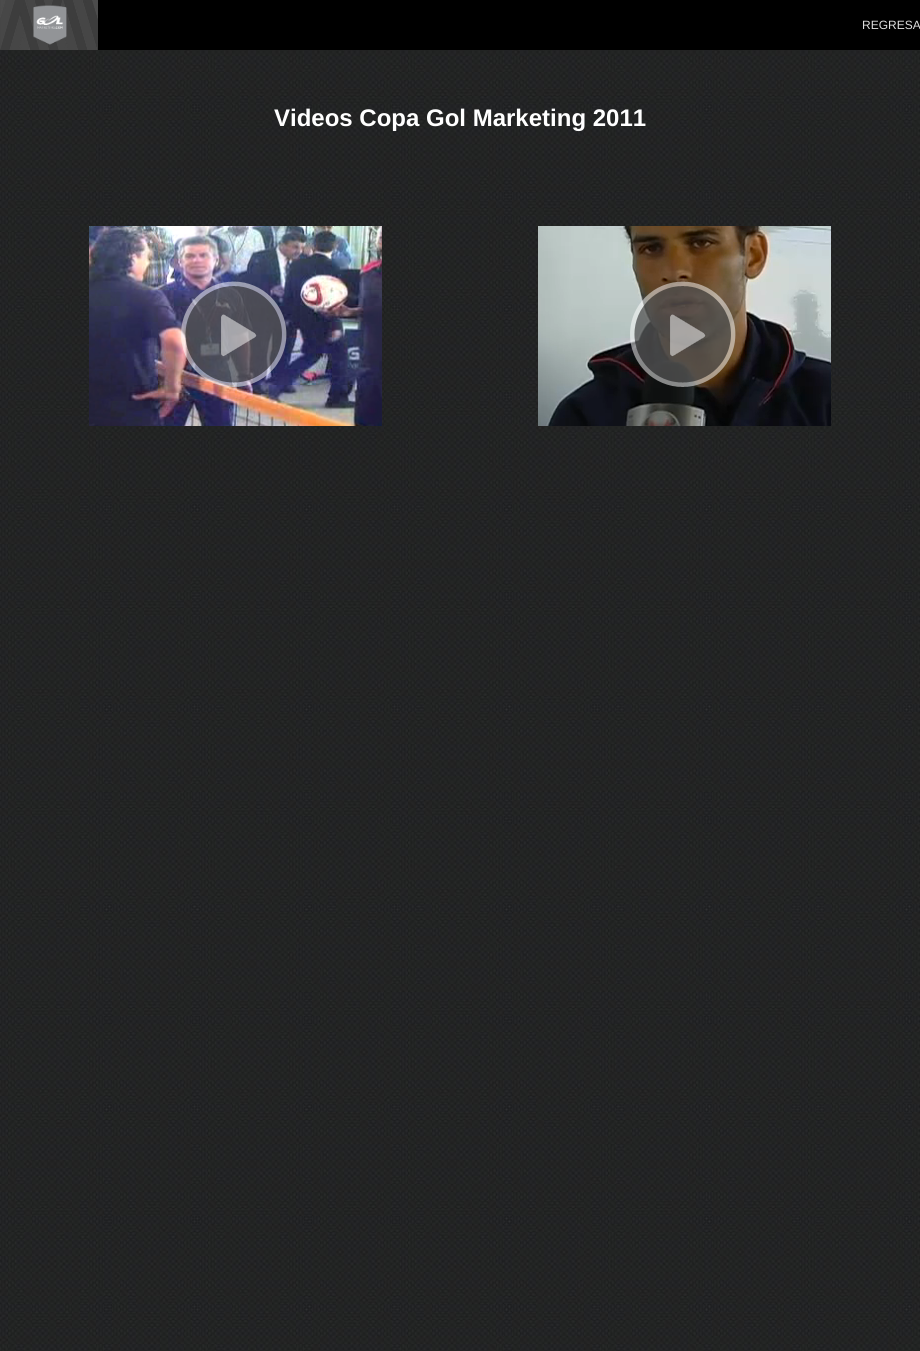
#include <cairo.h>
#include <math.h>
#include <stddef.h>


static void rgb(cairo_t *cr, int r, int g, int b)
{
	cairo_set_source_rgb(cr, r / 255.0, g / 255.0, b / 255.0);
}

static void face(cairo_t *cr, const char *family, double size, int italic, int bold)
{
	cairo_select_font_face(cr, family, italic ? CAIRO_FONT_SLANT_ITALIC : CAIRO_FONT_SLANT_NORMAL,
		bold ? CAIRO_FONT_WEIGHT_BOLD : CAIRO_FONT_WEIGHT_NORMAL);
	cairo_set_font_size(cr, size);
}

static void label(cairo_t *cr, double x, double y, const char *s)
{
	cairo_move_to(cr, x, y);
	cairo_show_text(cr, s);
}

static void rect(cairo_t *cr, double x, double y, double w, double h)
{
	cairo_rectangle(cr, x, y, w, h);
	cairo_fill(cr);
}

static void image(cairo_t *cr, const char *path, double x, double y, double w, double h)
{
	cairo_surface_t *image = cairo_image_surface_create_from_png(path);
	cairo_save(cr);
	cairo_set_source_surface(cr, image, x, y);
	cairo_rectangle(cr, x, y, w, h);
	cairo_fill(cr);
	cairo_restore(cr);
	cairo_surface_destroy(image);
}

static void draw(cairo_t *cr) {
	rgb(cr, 255, 255, 255);
	cairo_paint(cr);
	image(cr, "image0.png", 0, 50, 920, 1301);
	rgb(cr, 0, 0, 0);
	rect(cr, 98, 0, 822, 50);
	image(cr, "image1.png", 0, 0, 98, 50);
	image(cr, "image2.png", 33, 5, 34, 40);
	face(cr, "Liberation Sans", 12, 0, 0);
	rgb(cr, 221, 221, 221);
	label(cr, 862, 29, "REGRESA");
	face(cr, "Liberation Sans", 24, 0, 1);
	rgb(cr, 255, 255, 255);
	label(cr, 274, 126, "Videos Copa Gol Marketing 2011");
	image(cr, "image3.png", 89, 226, 293, 200);
	image(cr, "image4.png", 538, 226, 293, 200);
}

int main(void) {
	cairo_surface_t *surface = cairo_image_surface_create(CAIRO_FORMAT_RGB24, 920, 1351);
	cairo_t *cr = cairo_create(surface);
	cairo_font_options_t *options = cairo_font_options_create();
	cairo_font_options_set_hint_metrics(options, CAIRO_HINT_METRICS_OFF);
	cairo_font_options_set_hint_style(options, CAIRO_HINT_STYLE_NONE);
	cairo_set_font_options(cr, options);
	cairo_set_miter_limit(cr, 4);
	draw(cr);
	cairo_surface_write_to_png(surface, "render.png");
	cairo_font_options_destroy(options);
	cairo_destroy(cr);
	cairo_surface_destroy(surface);
	return 0;
}
